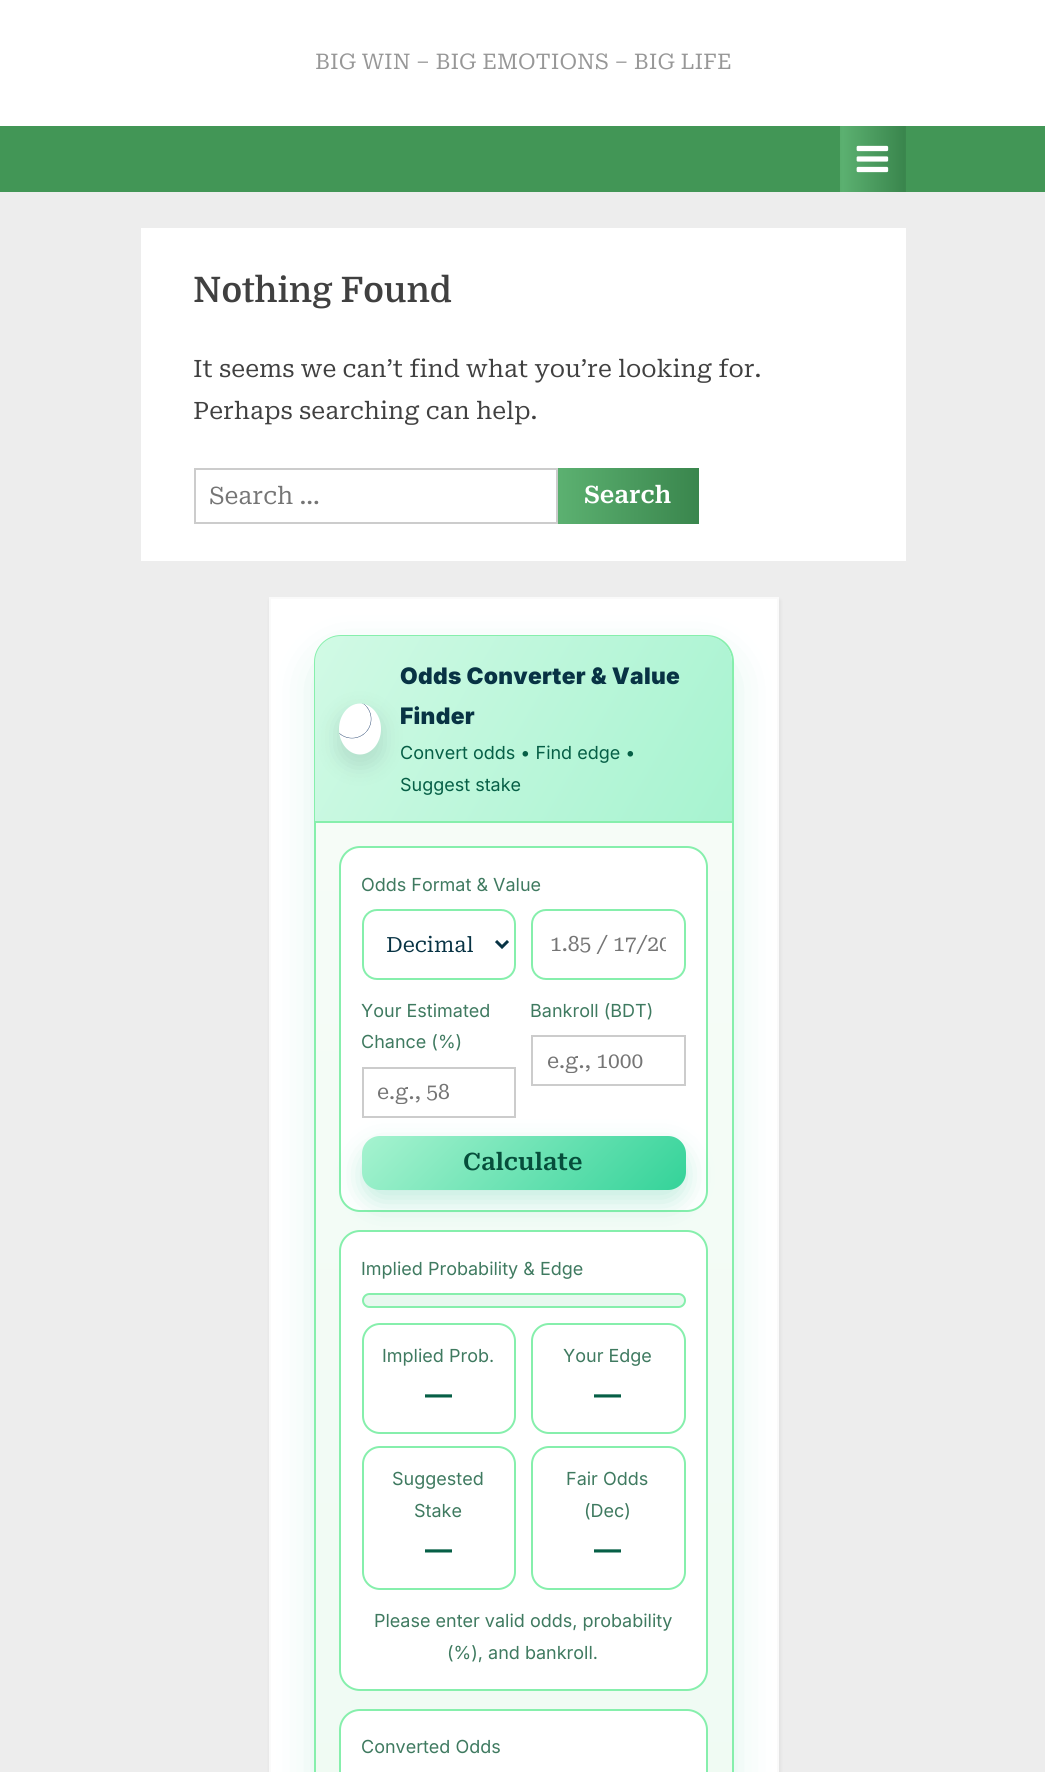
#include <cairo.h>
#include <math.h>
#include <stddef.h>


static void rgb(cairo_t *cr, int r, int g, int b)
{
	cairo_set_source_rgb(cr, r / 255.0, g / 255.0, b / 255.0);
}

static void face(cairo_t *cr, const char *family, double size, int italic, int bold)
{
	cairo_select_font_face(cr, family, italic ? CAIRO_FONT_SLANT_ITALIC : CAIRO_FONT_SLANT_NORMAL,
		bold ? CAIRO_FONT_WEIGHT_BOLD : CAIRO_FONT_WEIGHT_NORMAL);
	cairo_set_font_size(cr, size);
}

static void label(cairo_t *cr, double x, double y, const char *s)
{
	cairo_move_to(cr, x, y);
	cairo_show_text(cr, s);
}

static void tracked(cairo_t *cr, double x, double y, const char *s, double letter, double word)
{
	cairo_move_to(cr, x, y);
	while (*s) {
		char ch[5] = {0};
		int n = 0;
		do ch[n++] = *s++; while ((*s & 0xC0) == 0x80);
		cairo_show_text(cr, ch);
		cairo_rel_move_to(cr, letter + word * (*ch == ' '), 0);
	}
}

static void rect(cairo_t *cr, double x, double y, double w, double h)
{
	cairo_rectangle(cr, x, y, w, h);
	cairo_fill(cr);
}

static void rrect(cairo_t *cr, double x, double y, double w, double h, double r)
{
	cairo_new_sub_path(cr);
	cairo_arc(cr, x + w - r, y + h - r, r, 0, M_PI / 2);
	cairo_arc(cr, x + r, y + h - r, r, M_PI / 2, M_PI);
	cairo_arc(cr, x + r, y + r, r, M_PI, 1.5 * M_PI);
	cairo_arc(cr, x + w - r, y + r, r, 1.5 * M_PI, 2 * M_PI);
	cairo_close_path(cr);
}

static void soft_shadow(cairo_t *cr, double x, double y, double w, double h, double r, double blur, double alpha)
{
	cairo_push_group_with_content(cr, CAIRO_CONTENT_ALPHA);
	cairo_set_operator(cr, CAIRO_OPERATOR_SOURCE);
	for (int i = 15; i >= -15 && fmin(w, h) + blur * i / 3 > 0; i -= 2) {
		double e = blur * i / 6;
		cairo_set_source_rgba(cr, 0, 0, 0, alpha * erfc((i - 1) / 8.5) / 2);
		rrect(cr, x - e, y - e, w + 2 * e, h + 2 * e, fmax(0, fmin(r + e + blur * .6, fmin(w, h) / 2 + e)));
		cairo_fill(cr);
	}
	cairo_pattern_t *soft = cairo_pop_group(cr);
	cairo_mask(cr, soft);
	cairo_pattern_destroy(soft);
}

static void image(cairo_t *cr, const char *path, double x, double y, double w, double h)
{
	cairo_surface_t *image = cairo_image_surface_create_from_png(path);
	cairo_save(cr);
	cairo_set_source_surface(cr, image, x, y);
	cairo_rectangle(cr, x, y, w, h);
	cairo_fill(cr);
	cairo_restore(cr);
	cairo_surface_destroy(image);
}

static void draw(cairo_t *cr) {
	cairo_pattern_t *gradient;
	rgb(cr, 237, 237, 237);
	cairo_paint(cr);
	rgb(cr, 255, 255, 255);
	rect(cr, 0, 0, 1045, 126);
	face(cr, "Roboto Serif", 21.6, 0, 0);
	rgb(cr, 151, 151, 151);
	label(cr, 315, 69, "BIG WIN – BIG EMOTIONS – BIG LIFE");
	rgb(cr, 66, 150, 86);
	rect(cr, 0, 126, 1045, 66);
	gradient = cairo_pattern_create_linear(723, 159, 843, 159);
	cairo_pattern_add_color_stop_rgba(gradient, 0, 0.357, 0.69, 0.439, 1);
	cairo_pattern_add_color_stop_rgba(gradient, 0.51, 0.227, 0.525, 0.302, 1);
	cairo_pattern_add_color_stop_rgba(gradient, 1, 0.357, 0.69, 0.439, 1);
	cairo_set_source(cr, gradient);
	cairo_pattern_destroy(gradient);
	rect(cr, 840, 126, 3, 66);
	gradient = cairo_pattern_create_linear(843, 159, 963, 159);
	cairo_pattern_add_color_stop_rgba(gradient, 0, 0.357, 0.69, 0.439, 1);
	cairo_pattern_add_color_stop_rgba(gradient, 0.51, 0.227, 0.525, 0.302, 1);
	cairo_pattern_add_color_stop_rgba(gradient, 1, 0.357, 0.69, 0.439, 1);
	cairo_set_source(cr, gradient);
	cairo_pattern_destroy(gradient);
	rect(cr, 843, 126, 63, 66);
	image(cr, "image0.png", 856, 145, 33, 28);
	rgb(cr, 255, 255, 255);
	rect(cr, 141, 228, 765, 333);
	face(cr, "Domine SemiBold", 35, 0, 0);
	rgb(cr, 64, 64, 64);
	label(cr, 193, 302, "Nothing Found");
	face(cr, "Roboto Serif", 24, 0, 0);
	label(cr, 193, 377, "It seems we can’t find what you’re looking for.");
	label(cr, 193, 419, "Perhaps searching can help.");
	cairo_rectangle(cr, 195, 469, 362, 54);
	rgb(cr, 204, 204, 204);
	cairo_stroke(cr);
	rgb(cr, 117, 117, 117);
	label(cr, 209, 504, "Search …");
	gradient = cairo_pattern_create_linear(291, 496, 561, 496);
	cairo_pattern_add_color_stop_rgba(gradient, 0, 0.357, 0.69, 0.439, 1);
	cairo_pattern_add_color_stop_rgba(gradient, 0.51, 0.227, 0.525, 0.302, 1);
	cairo_pattern_add_color_stop_rgba(gradient, 1, 0.357, 0.69, 0.439, 1);
	cairo_set_source(cr, gradient);
	cairo_pattern_destroy(gradient);
	rect(cr, 558, 468, 3, 56);
	gradient = cairo_pattern_create_linear(561, 496, 831, 496);
	cairo_pattern_add_color_stop_rgba(gradient, 0, 0.357, 0.69, 0.439, 1);
	cairo_pattern_add_color_stop_rgba(gradient, 0.51, 0.227, 0.525, 0.302, 1);
	cairo_pattern_add_color_stop_rgba(gradient, 1, 0.357, 0.69, 0.439, 1);
	cairo_set_source(cr, gradient);
	cairo_pattern_destroy(gradient);
	rect(cr, 561, 468, 138, 56);
	face(cr, "Roboto Serif SemiBold", 24, 0, 0);
	rgb(cr, 255, 255, 255);
	label(cr, 584, 503, "Search");
	rgb(cr, 0, 0, 0);
	soft_shadow(cr, 270, 600, 510, 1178, 0, 2, 0.07);
	rgb(cr, 255, 255, 255);
	cairo_rectangle(cr, 270, 598, 508, 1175);
	cairo_fill_preserve(cr);
	rgb(cr, 250, 250, 250);
	cairo_stroke(cr);
	rgb(cr, 16, 185, 129);
	soft_shadow(cr, 314, 653, 420, 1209, 27, 21, 0.15);
	cairo_save(cr);
	rrect(cr, 314, 635, 420, 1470, 27);
	cairo_clip(cr);
	gradient = cairo_pattern_create_linear(523, 636, 524, 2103);
	cairo_pattern_add_color_stop_rgba(gradient, 0, 0.969, 0.988, 0.973, 1);
	cairo_pattern_add_color_stop_rgba(gradient, 1, 0.933, 0.984, 0.949, 1);
	cairo_set_source(cr, gradient);
	cairo_pattern_destroy(gradient);
	rect(cr, 314, 636, 420, 1136);
	cairo_restore(cr);
	rrect(cr, 315, 636, 418, 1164, 26);
	rgb(cr, 134, 239, 172);
	cairo_stroke(cr);
	gradient = cairo_pattern_create_linear(327, 615, 720, 842);
	cairo_pattern_add_color_stop_rgba(gradient, 0, 0.82, 0.98, 0.898, 1);
	cairo_pattern_add_color_stop_rgba(gradient, 1, 0.655, 0.953, 0.816, 1);
	cairo_set_source(cr, gradient);
	cairo_pattern_destroy(gradient);
	cairo_new_path(cr);
	cairo_move_to(cr, 341, 636);
	cairo_line_to(cr, 706, 636);
	cairo_curve_to(cr, 720.5, 636, 732, 647.5, 732, 662);
	cairo_line_to(cr, 732, 821);
	cairo_line_to(cr, 315, 821);
	cairo_line_to(cr, 315, 662);
	cairo_curve_to(cr, 315, 647.5, 326.5, 636, 341, 636);
	cairo_close_path(cr);
	cairo_fill(cr);
	rgb(cr, 134, 239, 172);
	rect(cr, 315, 821, 417, 2);
	rgb(cr, 2, 6, 23);
	soft_shadow(cr, 339, 713, 42, 51, 21, 12, 0.12);
	gradient = cairo_pattern_create_radial(352, 719, 0, 352, 719, 46);
	cairo_pattern_add_color_stop_rgba(gradient, 0, 1, 1, 1, 1);
	cairo_pattern_add_color_stop_rgba(gradient, 0.4, 1, 1, 1, 1);
	cairo_pattern_add_color_stop_rgba(gradient, 0.41, 0.58, 0.639, 0.722, 1);
	cairo_pattern_add_color_stop_rgba(gradient, 0.42, 0.58, 0.639, 0.722, 1);
	cairo_pattern_add_color_stop_rgba(gradient, 0.43, 1, 1, 1, 1);
	cairo_pattern_add_color_stop_rgba(gradient, 1, 1, 1, 1, 1);
	cairo_set_source(cr, gradient);
	cairo_pattern_destroy(gradient);
	cairo_new_path(cr);
	cairo_move_to(cr, 360, 703.5);
	cairo_curve_to(cr, 371.5, 703.5, 381, 715, 381, 729);
	cairo_curve_to(cr, 381, 743, 371.5, 754.5, 360, 754.5);
	cairo_curve_to(cr, 348.5, 754.5, 339, 743, 339, 729);
	cairo_curve_to(cr, 339, 715, 348.5, 703.5, 360, 703.5);
	cairo_close_path(cr);
	cairo_fill(cr);
	face(cr, "Inter Black", 22.75, 0, 0);
	rgb(cr, 8, 51, 68);
	tracked(cr, 400, 684, "Odds Converter & Value", 0.3, 0);
	tracked(cr, 400, 724, "Finder", 0.3, 0);
	face(cr, "Inter", 18, 0, 0);
	rgb(cr, 6, 95, 70);
	label(cr, 400, 759, "Convert odds • Find edge •");
	label(cr, 400, 791, "Suggest stake");
	rgb(cr, 255, 255, 255);
	rrect(cr, 340, 847, 367, 364, 20);
	cairo_fill_preserve(cr);
	rgb(cr, 134, 239, 172);
	cairo_stroke(cr);
	rgb(cr, 63, 122, 96);
	label(cr, 361, 891, "Odds Format & Value");
	rrect(cr, 363, 910, 152, 69, 14);
	rgb(cr, 134, 239, 172);
	cairo_stroke(cr);
	cairo_new_path(cr);
	cairo_move_to(cr, 496, 941);
	cairo_line_to(cr, 502, 947);
	cairo_line_to(cr, 508, 941);
	rgb(cr, 8, 51, 68);
	cairo_set_line_width(cr, 3);
	cairo_stroke(cr);
	face(cr, "Roboto Serif", 21, 0, 0);
	label(cr, 386, 952, "Decimal");
	rrect(cr, 532, 910, 153, 69, 14);
	rgb(cr, 134, 239, 172);
	cairo_set_line_width(cr, 2);
	cairo_stroke(cr);
	cairo_save(cr);
	cairo_rectangle(cr, 551, 932, 115, 24);
	cairo_clip(cr);
	rgb(cr, 117, 117, 117);
	label(cr, 550, 951, "1.85 / 17/20");
	cairo_restore(cr);
	face(cr, "Inter", 18, 0, 0);
	rgb(cr, 63, 122, 96);
	label(cr, 361, 1017, "Your Estimated");
	label(cr, 361, 1048, "Chance (%)");
	cairo_rectangle(cr, 363, 1068, 152, 49);
	rgb(cr, 204, 204, 204);
	cairo_stroke(cr);
	cairo_save(cr);
	cairo_rectangle(cr, 378, 1080, 99, 24);
	cairo_clip(cr);
	face(cr, "Roboto Serif", 21, 0, 0);
	rgb(cr, 117, 117, 117);
	label(cr, 377, 1099, "e.g., 58");
	cairo_restore(cr);
	rgb(cr, 63, 122, 96);
	label(cr, 530, 1017, "Bankroll (BDT)");
	cairo_rectangle(cr, 532, 1036, 153, 49);
	rgb(cr, 204, 204, 204);
	cairo_stroke(cr);
	cairo_save(cr);
	cairo_rectangle(cr, 548, 1049, 99, 24);
	cairo_clip(cr);
	face(cr, "Roboto Serif", 21, 0, 0);
	rgb(cr, 117, 117, 117);
	label(cr, 547, 1068, "e.g., 1000");
	cairo_restore(cr);
	rgb(cr, 255, 255, 255);
	rrect(cr, 340, 1231, 367, 459, 20);
	cairo_fill_preserve(cr);
	rgb(cr, 134, 239, 172);
	cairo_stroke(cr);
	rgb(cr, 16, 185, 129);
	soft_shadow(cr, 362, 1148, 324, 54, 18, 13.5, 0.25);
	gradient = cairo_pattern_create_linear(429, 1068, 618, 1257);
	cairo_pattern_add_color_stop_rgba(gradient, 0, 0.655, 0.953, 0.816, 1);
	cairo_pattern_add_color_stop_rgba(gradient, 1, 0.204, 0.827, 0.6, 1);
	cairo_set_source(cr, gradient);
	cairo_pattern_destroy(gradient);
	rrect(cr, 362, 1136, 324, 54, 18);
	cairo_fill(cr);
	face(cr, "Roboto Serif SemiBold", 24, 0, 0);
	rgb(cr, 6, 78, 59);
	label(cr, 463, 1170, "Calculate");
	face(cr, "Inter", 18, 0, 0);
	rgb(cr, 63, 122, 96);
	label(cr, 361, 1275, "Implied Probability & Edge");
	rgb(cr, 232, 248, 239);
	rrect(cr, 363, 1294, 322, 13, 6.5);
	cairo_fill_preserve(cr);
	rgb(cr, 134, 239, 172);
	cairo_stroke(cr);
	rrect(cr, 363, 1324, 152, 109, 17);
	cairo_stroke(cr);
	rgb(cr, 63, 122, 96);
	label(cr, 382, 1362, "Implied Prob.");
	face(cr, "Inter", 27, 0, 1);
	rgb(cr, 6, 95, 70);
	label(cr, 425, 1404, "—");
	rrect(cr, 532, 1324, 153, 109, 17);
	rgb(cr, 134, 239, 172);
	cairo_stroke(cr);
	face(cr, "Inter", 18, 0, 0);
	rgb(cr, 63, 122, 96);
	label(cr, 563, 1362, "Your Edge");
	face(cr, "Inter", 27, 0, 1);
	rgb(cr, 6, 95, 70);
	label(cr, 594, 1404, "—");
	rrect(cr, 363, 1447, 152, 142, 17);
	rgb(cr, 134, 239, 172);
	cairo_stroke(cr);
	face(cr, "Inter", 18, 0, 0);
	rgb(cr, 63, 122, 96);
	label(cr, 392, 1485, "Suggested");
	label(cr, 414, 1517, "Stake");
	face(cr, "Inter", 27, 0, 1);
	rgb(cr, 6, 95, 70);
	label(cr, 425, 1559, "—");
	rrect(cr, 532, 1447, 153, 142, 17);
	rgb(cr, 134, 239, 172);
	cairo_stroke(cr);
	face(cr, "Inter", 18, 0, 0);
	rgb(cr, 63, 122, 96);
	label(cr, 566, 1485, "Fair Odds");
	label(cr, 584, 1517, "(Dec)");
	face(cr, "Inter", 27, 0, 1);
	rgb(cr, 6, 95, 70);
	label(cr, 594, 1559, "—");
	face(cr, "Inter", 18, 0, 0);
	rgb(cr, 63, 122, 96);
	label(cr, 374, 1627, "Please enter valid odds, probability");
	label(cr, 447, 1659, "(%), and bankroll.");
	rgb(cr, 255, 255, 255);
	rrect(cr, 340, 1710, 367, 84, 20);
	cairo_fill_preserve(cr);
	rgb(cr, 134, 239, 172);
	cairo_stroke(cr);
	rgb(cr, 63, 122, 96);
	label(cr, 361, 1753, "Converted Odds");
}

int main(void) {
	cairo_surface_t *surface = cairo_image_surface_create(CAIRO_FORMAT_RGB24, 1045, 1772);
	cairo_t *cr = cairo_create(surface);
	cairo_font_options_t *options = cairo_font_options_create();
	cairo_font_options_set_hint_metrics(options, CAIRO_HINT_METRICS_OFF);
	cairo_font_options_set_hint_style(options, CAIRO_HINT_STYLE_NONE);
	cairo_set_font_options(cr, options);
	cairo_set_miter_limit(cr, 4);
	draw(cr);
	cairo_surface_write_to_png(surface, "render.png");
	cairo_font_options_destroy(options);
	cairo_destroy(cr);
	cairo_surface_destroy(surface);
	return 0;
}
